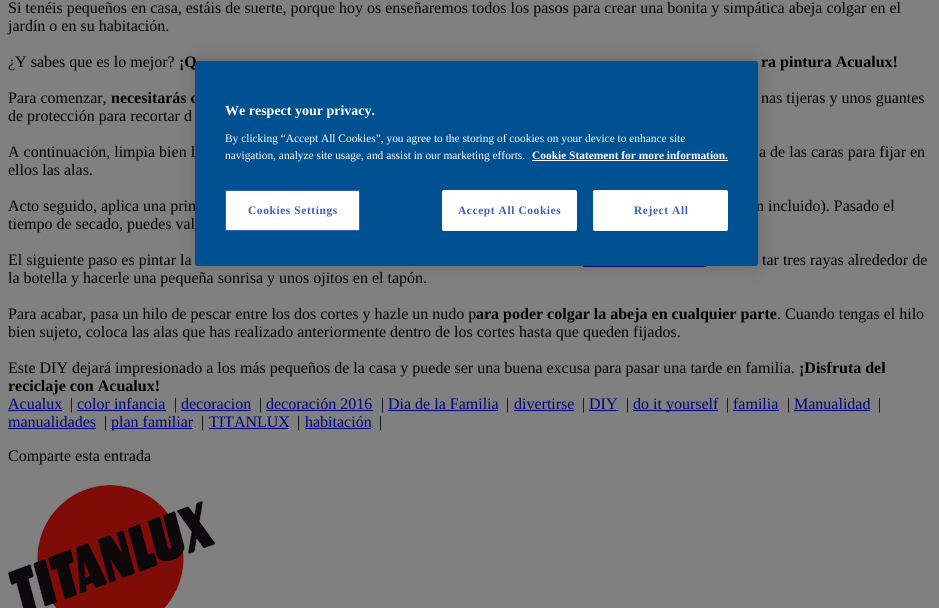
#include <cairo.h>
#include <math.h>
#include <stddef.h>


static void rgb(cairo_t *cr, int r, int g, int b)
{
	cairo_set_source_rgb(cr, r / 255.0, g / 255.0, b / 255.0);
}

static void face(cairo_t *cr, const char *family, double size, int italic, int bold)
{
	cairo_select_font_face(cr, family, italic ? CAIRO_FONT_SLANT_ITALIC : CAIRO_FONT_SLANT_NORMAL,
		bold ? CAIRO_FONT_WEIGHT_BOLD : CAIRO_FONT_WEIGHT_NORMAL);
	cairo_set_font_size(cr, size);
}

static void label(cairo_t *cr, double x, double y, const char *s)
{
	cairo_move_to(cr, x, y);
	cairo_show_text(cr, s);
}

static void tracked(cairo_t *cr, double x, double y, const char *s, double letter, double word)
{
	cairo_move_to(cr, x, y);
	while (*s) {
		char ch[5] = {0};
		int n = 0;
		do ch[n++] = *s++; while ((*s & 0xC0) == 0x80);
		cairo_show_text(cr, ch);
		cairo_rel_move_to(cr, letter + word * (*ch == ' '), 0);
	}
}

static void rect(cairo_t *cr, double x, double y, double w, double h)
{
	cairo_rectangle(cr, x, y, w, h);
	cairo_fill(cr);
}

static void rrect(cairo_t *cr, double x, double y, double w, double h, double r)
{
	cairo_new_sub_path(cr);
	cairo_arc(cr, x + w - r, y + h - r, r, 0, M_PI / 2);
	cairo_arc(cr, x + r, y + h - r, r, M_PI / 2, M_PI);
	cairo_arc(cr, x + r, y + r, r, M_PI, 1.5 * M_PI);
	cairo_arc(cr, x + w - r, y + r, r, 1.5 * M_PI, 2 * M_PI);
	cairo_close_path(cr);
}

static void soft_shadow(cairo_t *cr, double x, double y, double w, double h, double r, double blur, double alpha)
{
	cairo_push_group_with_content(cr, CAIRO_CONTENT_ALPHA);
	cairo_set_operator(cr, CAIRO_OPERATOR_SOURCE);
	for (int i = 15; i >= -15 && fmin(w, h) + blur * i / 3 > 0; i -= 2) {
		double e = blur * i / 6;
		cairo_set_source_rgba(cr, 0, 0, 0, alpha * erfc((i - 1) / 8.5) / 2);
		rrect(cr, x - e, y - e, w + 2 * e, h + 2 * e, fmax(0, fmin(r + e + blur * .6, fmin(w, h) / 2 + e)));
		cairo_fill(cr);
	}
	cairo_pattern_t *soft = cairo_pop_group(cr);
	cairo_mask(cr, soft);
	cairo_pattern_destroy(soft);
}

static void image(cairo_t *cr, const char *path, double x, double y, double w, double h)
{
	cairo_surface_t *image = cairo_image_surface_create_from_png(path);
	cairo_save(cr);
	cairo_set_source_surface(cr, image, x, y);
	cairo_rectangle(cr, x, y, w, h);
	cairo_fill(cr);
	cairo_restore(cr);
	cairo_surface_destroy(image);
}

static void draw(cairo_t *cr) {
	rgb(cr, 128, 128, 128);
	cairo_paint(cr);
	face(cr, "Liberation Serif", 16, 0, 0);
	rgb(cr, 0, 0, 0);
	label(cr, 8, 13, "Si tenéis pequeños en casa, estáis de suerte, porque hoy os enseñaremos todos los pasos para crear una bonita y simpática abeja colgar en el");
	label(cr, 8, 31, "jardín o en su habitación.");
	label(cr, 8, 67, "¿Y sabes que es lo mejor?");
	face(cr, "Liberation Serif", 16, 0, 1);
	label(cr, 179, 67, "¡Q");
	label(cr, 761, 67, "ra pintura Acualux!");
	face(cr, "Liberation Serif", 16, 0, 0);
	label(cr, 8, 103, "Para comenzar,");
	face(cr, "Liberation Serif", 16, 0, 1);
	label(cr, 111, 103, "necesitarás c");
	face(cr, "Liberation Serif", 16, 0, 0);
	label(cr, 761, 103, "nas tijeras y unos guantes");
	label(cr, 8, 121, "de protección para recortar d");
	label(cr, 8, 157, "A continuación, limpia bien l");
	label(cr, 759, 157, "a de las caras para fijar en");
	label(cr, 8, 175, "ellos las alas.");
	label(cr, 8, 211, "Acto seguido, aplica una prim");
	label(cr, 756, 211, "n incluido). Pasado el");
	label(cr, 8, 229, "tiempo de secado, puedes val");
	label(cr, 8, 265, "El siguiente paso es pintar la");
	label(cr, 762, 265, "tar tres rayas alrededor de");
	rgb(cr, 0, 0, 119);
	rect(cr, 583, 266, 123, 1);
	rgb(cr, 0, 0, 0);
	label(cr, 8, 283, "la botella y hacerle una pequeña sonrisa y unos ojitos en el tapón.");
	label(cr, 8, 319, "Para acabar, pasa un hilo de pescar entre los dos cortes y hazle un nudo p");
	face(cr, "Liberation Serif", 16, 0, 1);
	label(cr, 476, 319, "ara poder colgar la abeja en cualquier parte");
	face(cr, "Liberation Serif", 16, 0, 0);
	label(cr, 777, 319, ". Cuando tengas el hilo");
	label(cr, 8, 337, "bien sujeto, coloca las alas que has realizado anteriormente dentro de los cortes hasta que queden fijados.");
	label(cr, 8, 373, "Este DIY dejará impresionado a los más pequeños de la casa y puede ser una buena excusa para pasar una tarde en familia.");
	face(cr, "Liberation Serif", 16, 0, 1);
	label(cr, 799, 373, "¡Disfruta del");
	label(cr, 8, 391, "reciclaje con Acualux!");
	face(cr, "Liberation Serif", 16, 0, 0);
	rgb(cr, 0, 0, 119);
	label(cr, 8, 409, "Acualux");
	rect(cr, 8, 410, 54, 1);
	rgb(cr, 0, 0, 0);
	label(cr, 70, 409, "|");
	rgb(cr, 0, 0, 119);
	label(cr, 77, 409, "color infancia");
	rect(cr, 77, 410, 89, 1);
	rgb(cr, 0, 0, 0);
	label(cr, 174, 409, "|");
	rgb(cr, 0, 0, 119);
	label(cr, 181, 409, "decoracion");
	rect(cr, 181, 410, 70, 1);
	rgb(cr, 0, 0, 0);
	label(cr, 259, 409, "|");
	rgb(cr, 0, 0, 119);
	label(cr, 266, 409, "decoración 2016");
	rect(cr, 266, 410, 107, 1);
	rgb(cr, 0, 0, 0);
	label(cr, 381, 409, "|");
	rgb(cr, 0, 0, 119);
	label(cr, 388, 409, "Dia de la Familia");
	rect(cr, 388, 410, 110, 1);
	rgb(cr, 0, 0, 0);
	label(cr, 506, 409, "|");
	rgb(cr, 0, 0, 119);
	label(cr, 514, 409, "divertirse");
	rect(cr, 514, 410, 60, 1);
	rgb(cr, 0, 0, 0);
	label(cr, 582, 409, "|");
	rgb(cr, 0, 0, 119);
	label(cr, 589, 409, "DIY");
	rect(cr, 589, 410, 29, 1);
	rgb(cr, 0, 0, 0);
	label(cr, 626, 409, "|");
	rgb(cr, 0, 0, 119);
	rect(cr, 633, 410, 85, 1);
	label(cr, 633, 409, "do it yourself");
	rgb(cr, 0, 0, 0);
	label(cr, 726, 409, "|");
	rgb(cr, 0, 0, 119);
	label(cr, 733, 409, "familia");
	rect(cr, 733, 410, 46, 1);
	rgb(cr, 0, 0, 0);
	label(cr, 787, 409, "|");
	rgb(cr, 0, 0, 119);
	label(cr, 794, 409, "Manualidad");
	rect(cr, 794, 410, 76, 1);
	rgb(cr, 0, 0, 0);
	label(cr, 878, 409, "|");
	rgb(cr, 0, 0, 119);
	label(cr, 8, 427, "manualidades");
	rect(cr, 8, 428, 88, 1);
	rgb(cr, 0, 0, 0);
	label(cr, 104, 427, "|");
	rgb(cr, 0, 0, 119);
	rect(cr, 111, 428, 82, 1);
	label(cr, 111, 427, "plan familiar");
	rgb(cr, 0, 0, 0);
	label(cr, 201, 427, "|");
	rgb(cr, 0, 0, 119);
	label(cr, 209, 427, "TITANLUX");
	rect(cr, 209, 428, 80, 1);
	rgb(cr, 0, 0, 0);
	label(cr, 297, 427, "|");
	rgb(cr, 0, 0, 119);
	label(cr, 305, 427, "habitación");
	rect(cr, 305, 428, 66, 1);
	rgb(cr, 0, 0, 0);
	label(cr, 379, 427, "|");
	label(cr, 8, 461, "Comparte esta entrada");
	rgb(cr, 0, 0, 0);
	soft_shadow(cr, 195, 61, 563, 205, 2.5, 9, 0.2);
	rgb(cr, 0, 81, 146);
	rrect(cr, 195, 61, 563, 205, 2.5);
	cairo_fill(cr);
	face(cr, "Liberation Serif", 14, 0, 1);
	rgb(cr, 255, 255, 255);
	label(cr, 225, 115, "We respect your privacy.");
	face(cr, "Liberation Serif", 11.4, 0, 0);
	label(cr, 225, 142, "By clicking “Accept All Cookies”, you agree to the storing of cookies on your device to enhance site");
	label(cr, 225, 159, "navigation, analyze site usage, and assist in our marketing efforts.");
	face(cr, "Liberation Serif", 11.4, 0, 1);
	label(cr, 532, 159, "Cookie Statement for more information.");
	rgb(cr, 250, 251, 255);
	rect(cr, 532, 160, 196, 1);
	rgb(cr, 255, 255, 255);
	rrect(cr, 225.5, 190.5, 134, 40, 1.5);
	cairo_fill_preserve(cr);
	rgb(cr, 56, 96, 190);
	cairo_set_line_width(cr, 1);
	cairo_stroke(cr);
	tracked(cr, 248, 214, "Cookies Settings", 0.6, 0);
	rgb(cr, 255, 255, 255);
	rrect(cr, 442.5, 190.5, 134, 40, 1.5);
	cairo_fill_preserve(cr);
	cairo_stroke(cr);
	rgb(cr, 56, 96, 190);
	tracked(cr, 458, 214, "Accept All Cookies", 0.6, 0);
	rgb(cr, 255, 255, 255);
	rrect(cr, 593.5, 190.5, 134, 40, 1.5);
	cairo_fill_preserve(cr);
	cairo_stroke(cr);
	rgb(cr, 56, 96, 190);
	tracked(cr, 634, 214, "Reject All", 0.6, 0);
	image(cr, "image0.png", 8, 485, 207, 123);
}

int main(void) {
	cairo_surface_t *surface = cairo_image_surface_create(CAIRO_FORMAT_RGB24, 939, 608);
	cairo_t *cr = cairo_create(surface);
	cairo_font_options_t *options = cairo_font_options_create();
	cairo_font_options_set_hint_metrics(options, CAIRO_HINT_METRICS_OFF);
	cairo_font_options_set_hint_style(options, CAIRO_HINT_STYLE_NONE);
	cairo_set_font_options(cr, options);
	cairo_set_miter_limit(cr, 4);
	draw(cr);
	cairo_surface_write_to_png(surface, "render.png");
	cairo_font_options_destroy(options);
	cairo_destroy(cr);
	cairo_surface_destroy(surface);
	return 0;
}
